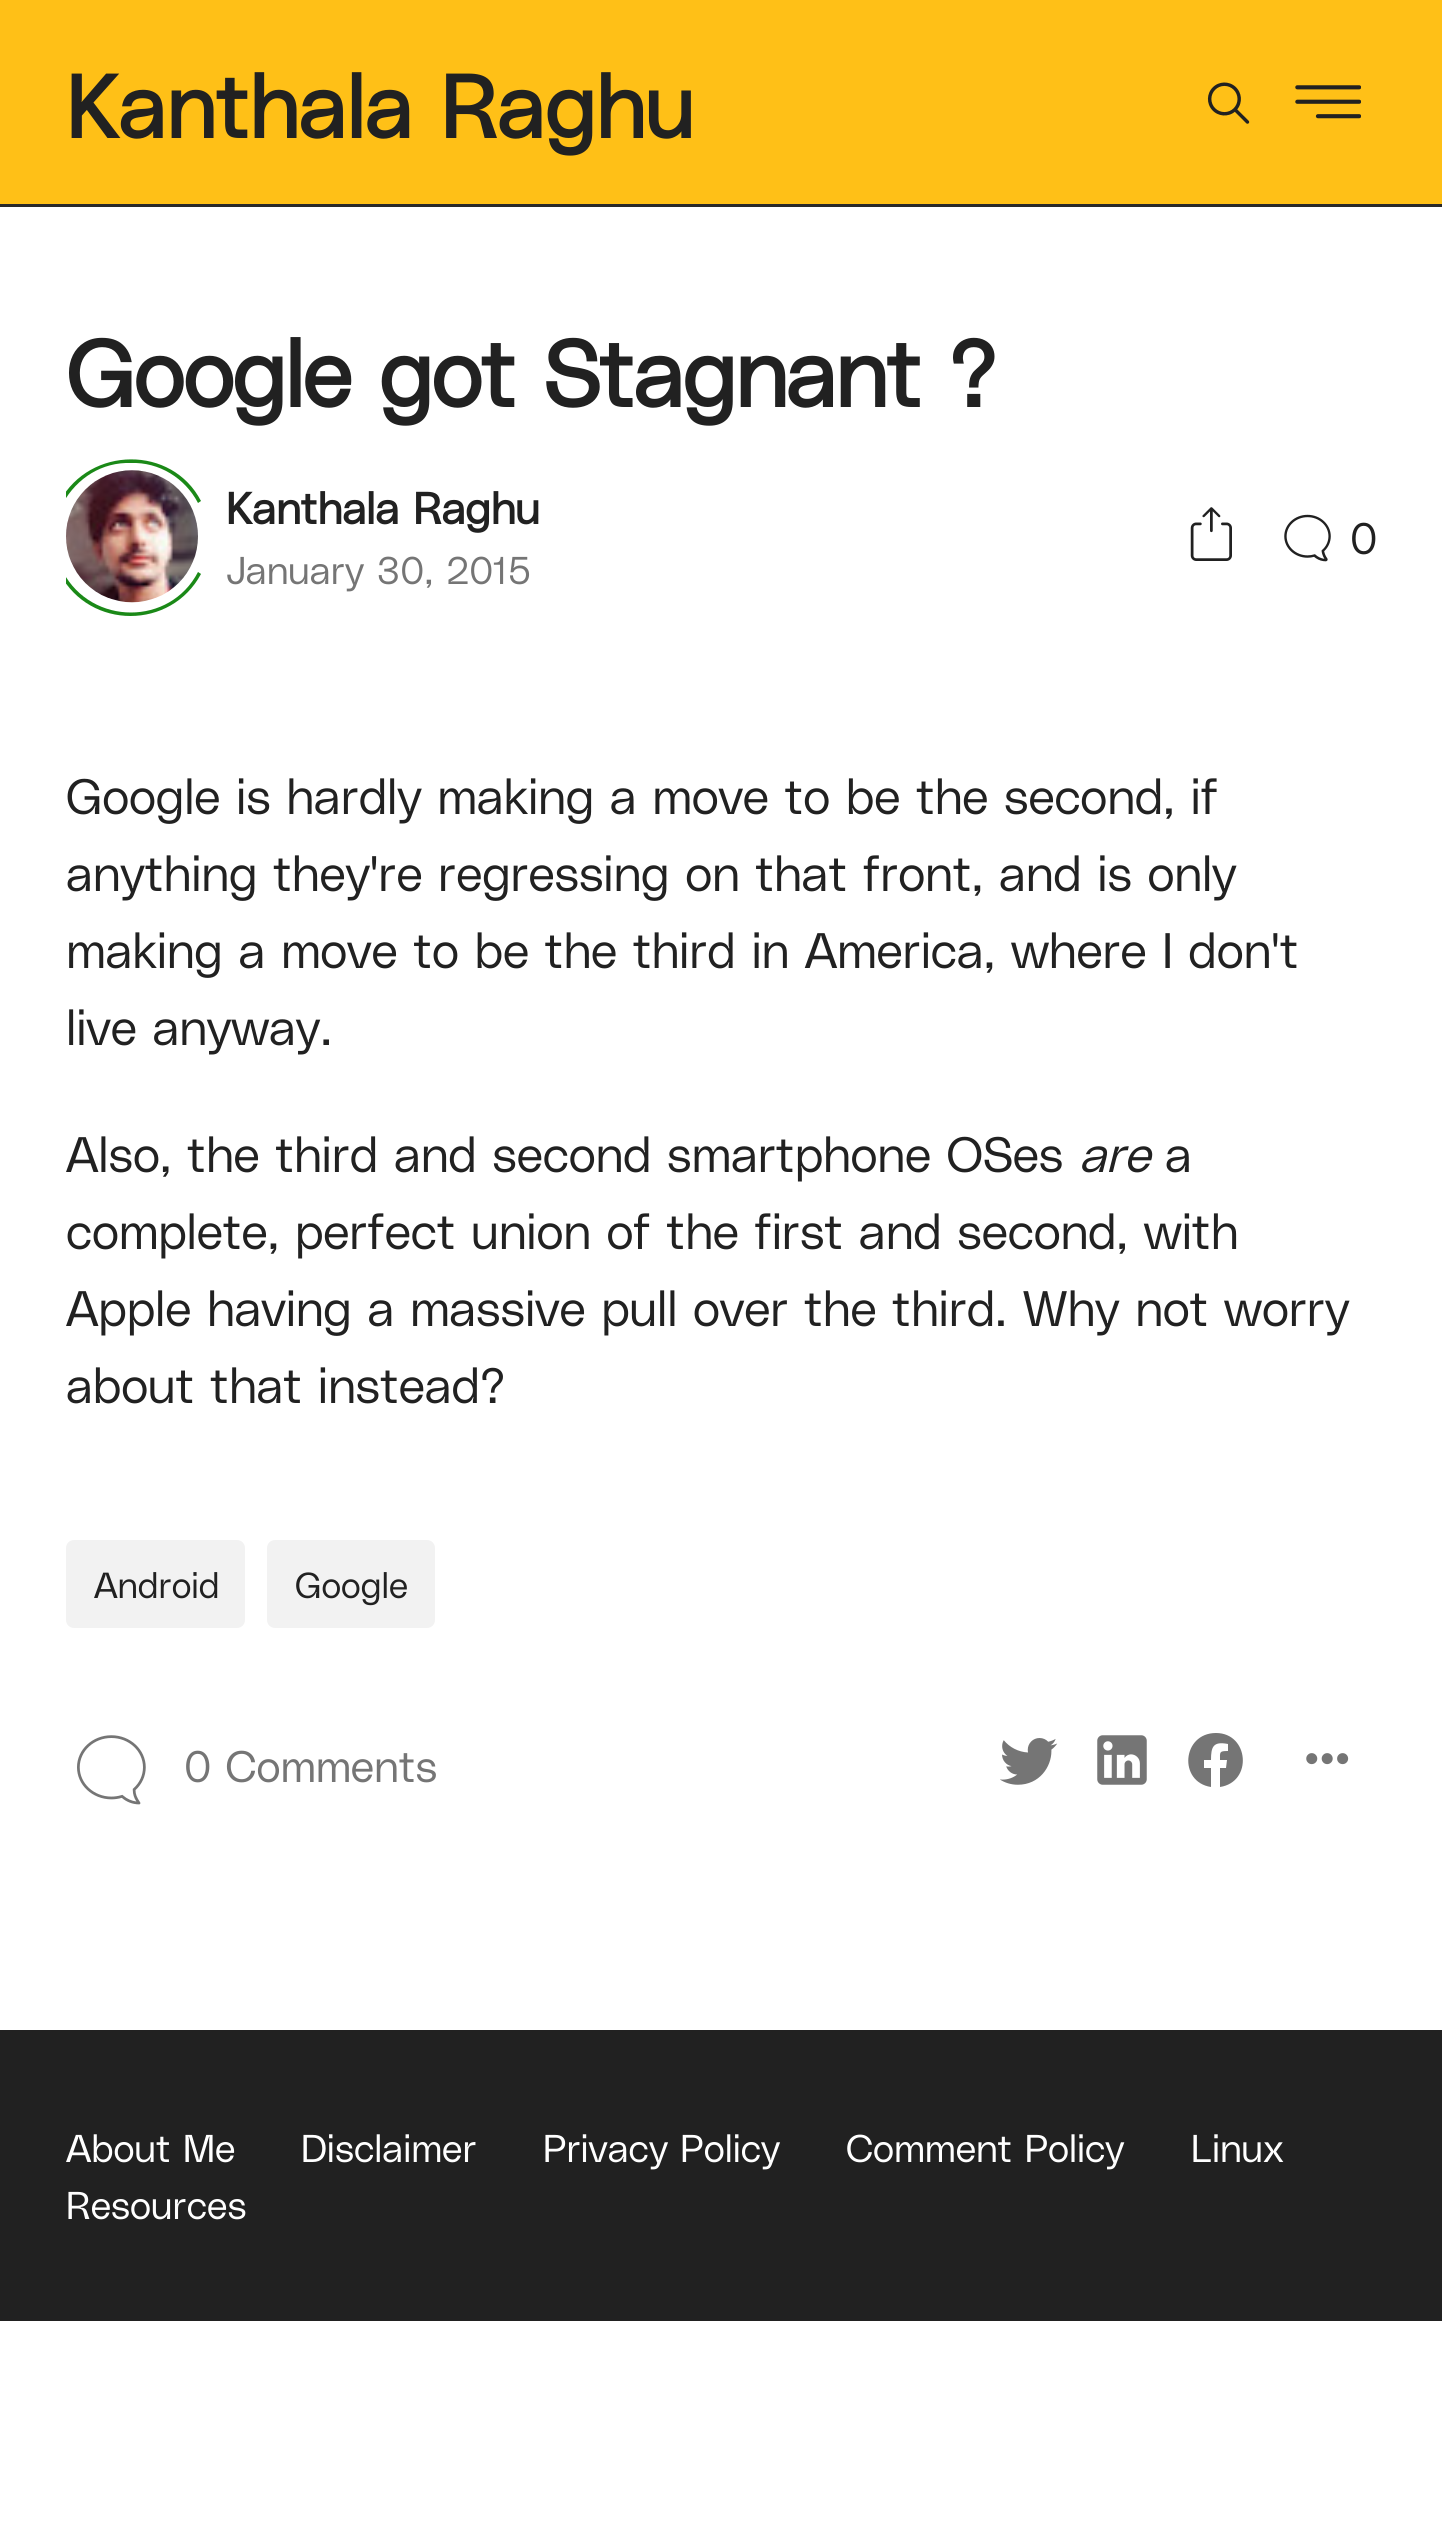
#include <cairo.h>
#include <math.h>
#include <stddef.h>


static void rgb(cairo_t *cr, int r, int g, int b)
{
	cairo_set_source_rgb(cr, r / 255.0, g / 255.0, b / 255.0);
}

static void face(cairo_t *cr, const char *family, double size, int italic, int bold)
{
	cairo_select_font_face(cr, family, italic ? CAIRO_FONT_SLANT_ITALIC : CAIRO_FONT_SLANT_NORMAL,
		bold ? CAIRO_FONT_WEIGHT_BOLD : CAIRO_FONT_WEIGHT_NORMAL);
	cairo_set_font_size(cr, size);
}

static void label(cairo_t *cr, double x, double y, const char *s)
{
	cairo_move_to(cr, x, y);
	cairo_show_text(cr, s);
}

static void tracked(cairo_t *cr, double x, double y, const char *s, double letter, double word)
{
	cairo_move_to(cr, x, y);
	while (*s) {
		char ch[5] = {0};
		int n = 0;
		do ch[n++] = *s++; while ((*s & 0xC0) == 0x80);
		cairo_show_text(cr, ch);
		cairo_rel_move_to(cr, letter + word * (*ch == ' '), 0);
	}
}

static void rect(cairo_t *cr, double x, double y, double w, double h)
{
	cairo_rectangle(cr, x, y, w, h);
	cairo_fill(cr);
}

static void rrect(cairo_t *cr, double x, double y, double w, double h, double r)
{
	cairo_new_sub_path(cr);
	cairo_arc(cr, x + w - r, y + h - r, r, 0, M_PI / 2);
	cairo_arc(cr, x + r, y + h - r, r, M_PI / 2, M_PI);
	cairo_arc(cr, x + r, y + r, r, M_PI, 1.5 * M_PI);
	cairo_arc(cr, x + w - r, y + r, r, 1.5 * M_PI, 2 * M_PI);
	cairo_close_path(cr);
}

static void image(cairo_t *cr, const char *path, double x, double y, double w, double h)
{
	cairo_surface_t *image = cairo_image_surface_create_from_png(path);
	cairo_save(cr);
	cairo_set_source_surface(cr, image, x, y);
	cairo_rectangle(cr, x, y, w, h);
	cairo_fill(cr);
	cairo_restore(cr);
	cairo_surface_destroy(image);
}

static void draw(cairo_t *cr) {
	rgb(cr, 255, 255, 255);
	cairo_paint(cr);
	rgb(cr, 255, 192, 23);
	rect(cr, 0, 0, 1442, 204);
	rgb(cr, 41, 41, 41);
	rect(cr, 0, 204, 1442, 3);
	face(cr, "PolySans", 88, 0, 1);
	rgb(cr, 33, 33, 33);
	label(cr, 66, 138, "Kanthala Raghu");
	image(cr, "image0.png", 1207, 82, 43, 42);
	image(cr, "image1.png", 1295, 85, 66, 34);
	face(cr, "PolySans", 93.5, 0, 1);
	tracked(cr, 66, 407, "Google got Stagnant ?", -1.5, 0);
	cairo_save(cr);
	cairo_rectangle(cr, 66, 459, 143, 157);
	cairo_clip(cr);
	rgb(cr, 26, 137, 23);
	cairo_set_fill_rule(cr, CAIRO_FILL_RULE_EVEN_ODD);
	cairo_new_path(cr);
	cairo_move_to(cr, 131, 463);
	cairo_curve_to(cr, 102, 462, 77, 478, 63, 503);
	cairo_line_to(cr, 60, 501);
	cairo_curve_to(cr, 90, 446, 172, 445, 201, 501);
	cairo_line_to(cr, 198, 503);
	cairo_curve_to(cr, 185, 478, 159, 462, 131, 463);
	cairo_close_path(cr);
	cairo_move_to(cr, 63, 572);
	cairo_curve_to(cr, 92, 626, 170, 626, 198, 572);
	cairo_line_to(cr, 201, 574);
	cairo_curve_to(cr, 171, 630, 90, 630, 60, 574);
	cairo_close_path(cr);
	cairo_fill(cr);
	cairo_restore(cr);
	image(cr, "image2.png", 66, 470, 132, 133);
	face(cr, "PolySans", 44, 0, 1);
	label(cr, 226, 524, "Kanthala Raghu");
	face(cr, "PolySans Light", 38.5, 0, 0);
	rgb(cr, 117, 117, 117);
	label(cr, 226, 584, "January 30, 2015");
	image(cr, "image3.png", 1190, 507, 42, 54);
	image(cr, "image4.png", 1284, 514, 47, 48);
	face(cr, "PolySans Light", 44, 0, 0);
	rgb(cr, 33, 33, 33);
	label(cr, 1350, 554, "0");
	face(cr, "PolySans Light", 49.5, 0, 0);
	tracked(cr, 66, 814, "Google is hardly making a move to be the second, if", -0.15, 0);
	tracked(cr, 66, 891, "anything they're regressing on that front, and is only", -0.15, 0);
	tracked(cr, 66, 968, "making a move to be the third in America, where I don't", -0.15, 0);
	tracked(cr, 66, 1045, "live anyway.", -0.15, 0);
	tracked(cr, 66, 1172, "Also, the third and second smartphone OSes", -0.15, 0);
	face(cr, "PolySans Light", 49.5, 1, 0);
	tracked(cr, 1079, 1172, "are", -0.15, 0);
	face(cr, "PolySans Light", 49.5, 0, 0);
	tracked(cr, 1165, 1172, "a", -0.15, 0);
	tracked(cr, 66, 1249, "complete, perfect union of the first and second, with", -0.15, 0);
	tracked(cr, 66, 1326, "Apple having a massive pull over the third. Why not worry", -0.15, 0);
	tracked(cr, 66, 1403, "about that instead?", -0.15, 0);
	rgb(cr, 242, 242, 242);
	rrect(cr, 66, 1540, 179, 88, 8);
	cairo_fill(cr);
	face(cr, "PolySans Light", 36, 0, 0);
	rgb(cr, 33, 33, 33);
	label(cr, 94, 1598, "Android");
	rgb(cr, 242, 242, 242);
	rrect(cr, 267, 1540, 168, 88, 8);
	cairo_fill(cr);
	rgb(cr, 33, 33, 33);
	label(cr, 295, 1598, "Google");
	image(cr, "image5.png", 77, 1735, 69, 70);
	face(cr, "PolySans Light", 44, 0, 0);
	rgb(cr, 117, 117, 117);
	label(cr, 184, 1782, "0 Comments");
	image(cr, "image6.png", 1000, 1738, 58, 47);
	image(cr, "image7.png", 1097, 1735, 50, 50);
	cairo_new_path(cr);
	cairo_move_to(cr, 1216, 1733);
	cairo_curve_to(cr, 1182, 1733, 1178, 1782, 1211, 1787);
	cairo_line_to(cr, 1211, 1768);
	cairo_line_to(cr, 1204, 1768);
	cairo_line_to(cr, 1204, 1760);
	cairo_line_to(cr, 1211, 1760);
	cairo_curve_to(cr, 1211, 1747, 1213, 1741, 1228, 1744);
	cairo_line_to(cr, 1228, 1751);
	cairo_curve_to(cr, 1219, 1751, 1220, 1752, 1220, 1760);
	cairo_line_to(cr, 1227, 1760);
	cairo_line_to(cr, 1226, 1768);
	cairo_line_to(cr, 1220, 1768);
	cairo_line_to(cr, 1220, 1787);
	cairo_curve_to(cr, 1253, 1782, 1249, 1733, 1216, 1733);
	cairo_close_path(cr);
	cairo_fill(cr);
	image(cr, "image8.png", 1306, 1753, 43, 12);
	rgb(cr, 33, 33, 33);
	rect(cr, 0, 2030, 1442, 291);
	face(cr, "PolySans Light", 38.5, 0, 0);
	rgb(cr, 255, 255, 255);
	label(cr, 66, 2162, "About Me");
	label(cr, 301, 2162, "Disclaimer");
	label(cr, 543, 2162, "Privacy Policy");
	label(cr, 846, 2162, "Comment Policy");
	label(cr, 1191, 2162, "Linux");
	label(cr, 66, 2219, "Resources");
}

int main(void) {
	cairo_surface_t *surface = cairo_image_surface_create(CAIRO_FORMAT_RGB24, 1442, 2521);
	cairo_t *cr = cairo_create(surface);
	cairo_font_options_t *options = cairo_font_options_create();
	cairo_font_options_set_hint_metrics(options, CAIRO_HINT_METRICS_OFF);
	cairo_font_options_set_hint_style(options, CAIRO_HINT_STYLE_NONE);
	cairo_set_font_options(cr, options);
	cairo_set_miter_limit(cr, 4);
	draw(cr);
	cairo_surface_write_to_png(surface, "render.png");
	cairo_font_options_destroy(options);
	cairo_destroy(cr);
	cairo_surface_destroy(surface);
	return 0;
}
